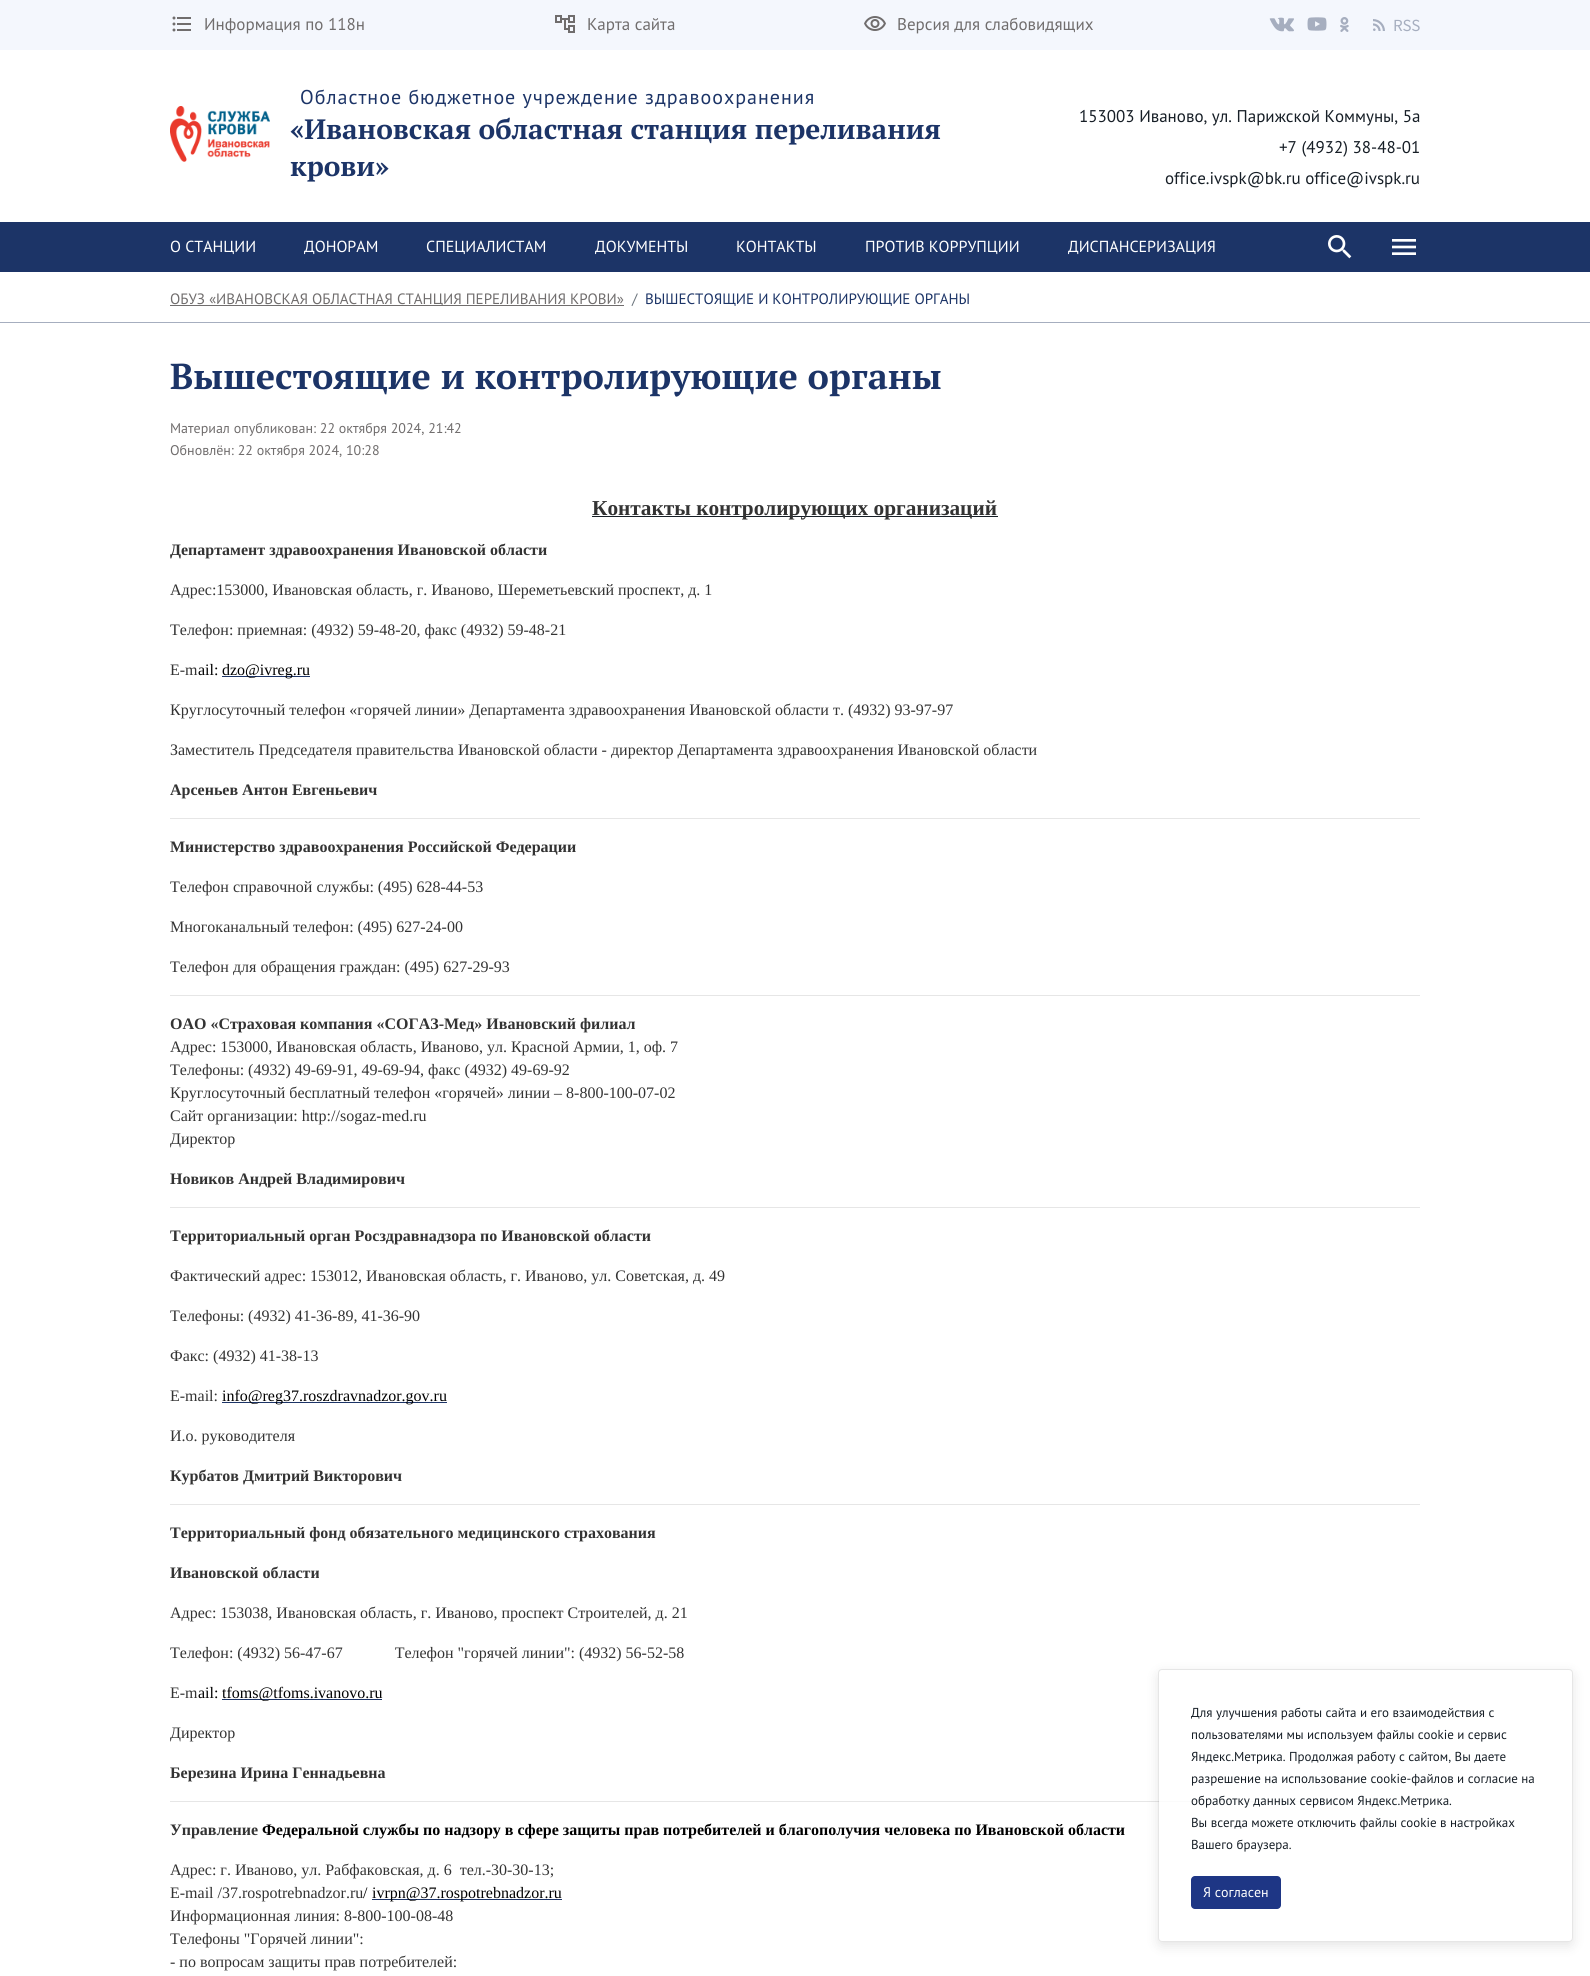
#include <cairo.h>
#include <math.h>
#include <stddef.h>


static void rgb(cairo_t *cr, int r, int g, int b)
{
	cairo_set_source_rgb(cr, r / 255.0, g / 255.0, b / 255.0);
}

static void face(cairo_t *cr, const char *family, double size, int italic, int bold)
{
	cairo_select_font_face(cr, family, italic ? CAIRO_FONT_SLANT_ITALIC : CAIRO_FONT_SLANT_NORMAL,
		bold ? CAIRO_FONT_WEIGHT_BOLD : CAIRO_FONT_WEIGHT_NORMAL);
	cairo_set_font_size(cr, size);
}

static void label(cairo_t *cr, double x, double y, const char *s)
{
	cairo_move_to(cr, x, y);
	cairo_show_text(cr, s);
}

static void tracked(cairo_t *cr, double x, double y, const char *s, double letter, double word)
{
	cairo_move_to(cr, x, y);
	while (*s) {
		char ch[5] = {0};
		int n = 0;
		do ch[n++] = *s++; while ((*s & 0xC0) == 0x80);
		cairo_show_text(cr, ch);
		cairo_rel_move_to(cr, letter + word * (*ch == ' '), 0);
	}
}

static void rect(cairo_t *cr, double x, double y, double w, double h)
{
	cairo_rectangle(cr, x, y, w, h);
	cairo_fill(cr);
}

static void rrect(cairo_t *cr, double x, double y, double w, double h, double r)
{
	cairo_new_sub_path(cr);
	cairo_arc(cr, x + w - r, y + h - r, r, 0, M_PI / 2);
	cairo_arc(cr, x + r, y + h - r, r, M_PI / 2, M_PI);
	cairo_arc(cr, x + r, y + r, r, M_PI, 1.5 * M_PI);
	cairo_arc(cr, x + w - r, y + r, r, 1.5 * M_PI, 2 * M_PI);
	cairo_close_path(cr);
}

static void soft_shadow(cairo_t *cr, double x, double y, double w, double h, double r, double blur, double alpha)
{
	cairo_push_group_with_content(cr, CAIRO_CONTENT_ALPHA);
	cairo_set_operator(cr, CAIRO_OPERATOR_SOURCE);
	for (int i = 15; i >= -15 && fmin(w, h) + blur * i / 3 > 0; i -= 2) {
		double e = blur * i / 6;
		cairo_set_source_rgba(cr, 0, 0, 0, alpha * erfc((i - 1) / 8.5) / 2);
		rrect(cr, x - e, y - e, w + 2 * e, h + 2 * e, fmax(0, fmin(r + e + blur * .6, fmin(w, h) / 2 + e)));
		cairo_fill(cr);
	}
	cairo_pattern_t *soft = cairo_pop_group(cr);
	cairo_mask(cr, soft);
	cairo_pattern_destroy(soft);
}

static void image(cairo_t *cr, const char *path, double x, double y, double w, double h)
{
	cairo_surface_t *image = cairo_image_surface_create_from_png(path);
	cairo_save(cr);
	cairo_set_source_surface(cr, image, x, y);
	cairo_rectangle(cr, x, y, w, h);
	cairo_fill(cr);
	cairo_restore(cr);
	cairo_surface_destroy(image);
}

static void draw(cairo_t *cr) {
	rgb(cr, 255, 255, 255);
	cairo_paint(cr);
	rgb(cr, 244, 247, 253);
	rect(cr, 0, 0, 1590, 50);
	image(cr, "image0.png", 172, 16, 19, 16);
	face(cr, "PT Sans", 17, 0, 0);
	rgb(cr, 112, 109, 109);
	label(cr, 204, 30, "Информация по 118н");
	image(cr, "image1.png", 555, 15, 20, 18);
	label(cr, 587, 30, "Карта сайта");
	image(cr, "image2.png", 864, 16, 22, 15);
	label(cr, 897, 30, "Версия для слабовидящих");
	image(cr, "image3.png", 1269, 17, 25, 15);
	image(cr, "image4.png", 1307, 17, 20, 14);
	image(cr, "image5.png", 1340, 17, 9, 15);
	image(cr, "image6.png", 1373, 19, 12, 12);
	image(cr, "image7.png", 1394, 19, 26, 13);
	image(cr, "image8.png", 170, 106, 100, 56);
	face(cr, "PT Sans", 20, 0, 0);
	rgb(cr, 28, 52, 103);
	tracked(cr, 300, 104, "Областное бюджетное учреждение здравоохранения", 1, 0);
	face(cr, "PT Serif", 28, 0, 1);
	label(cr, 290, 139, "«Ивановская областная станция переливания");
	label(cr, 290, 176, "крови»");
	face(cr, "PT Sans", 17, 0, 0);
	rgb(cr, 22, 30, 38);
	label(cr, 1079, 122, "153003 Иваново, ул. Парижской Коммуны, 5а");
	label(cr, 1279, 153, "+7 (4932) 38-48-01");
	label(cr, 1165, 184, "office.ivspk@bk.ru office@ivspk.ru");
	rgb(cr, 28, 52, 103);
	rect(cr, 0, 222, 1590, 50);
	face(cr, "PT Sans", 16, 0, 0);
	rgb(cr, 255, 255, 255);
	label(cr, 170, 252, "О СТАНЦИИ");
	label(cr, 304, 252, "ДОНОРАМ");
	label(cr, 426, 252, "СПЕЦИАЛИСТАМ");
	label(cr, 595, 252, "ДОКУМЕНТЫ");
	label(cr, 736, 252, "КОНТАКТЫ");
	label(cr, 865, 252, "ПРОТИВ КОРРУПЦИИ");
	cairo_save(cr);
	cairo_rectangle(cr, 1068, 236, 148, 21);
	cairo_clip(cr);
	label(cr, 1068, 252, "ДИСПАНСЕРИЗАЦИЯ");
	cairo_restore(cr);
	image(cr, "image9.png", 1328, 235, 24, 24);
	image(cr, "image10.png", 1392, 239, 24, 16);
	rgb(cr, 166, 174, 191);
	rect(cr, 0, 322, 1590, 1);
	rgb(cr, 112, 109, 109);
	rect(cr, 170, 305, 454, 1);
	face(cr, "PT Sans", 15, 0, 0);
	label(cr, 170, 304, "ОБУЗ «ИВАНОВСКАЯ ОБЛАСТНАЯ СТАНЦИЯ ПЕРЕЛИВАНИЯ КРОВИ»");
	rgb(cr, 108, 117, 125);
	label(cr, 632, 304, "/");
	rgb(cr, 28, 52, 103);
	label(cr, 645, 304, "ВЫШЕСТОЯЩИЕ И КОНТРОЛИРУЮЩИЕ ОРГАНЫ");
	face(cr, "PT Serif", 36, 0, 1);
	label(cr, 170, 389, "Вышестоящие и контролирующие органы");
	face(cr, "PT Sans", 14, 0, 0);
	rgb(cr, 112, 109, 109);
	label(cr, 170, 433, "Материал опубликован: 22 октября 2024, 21:42");
	label(cr, 170, 455, "Обновлён: 22 октября 2024, 10:28");
	rgb(cr, 22, 30, 38);
	rect(cr, 592, 516, 406, 1);
	face(cr, "Liberation Serif", 21.3, 0, 1);
	rgb(cr, 51, 51, 51);
	label(cr, 592, 515, "Контакты контролирующих организаций");
	face(cr, "Liberation Serif", 16, 0, 1);
	label(cr, 170, 555, "Департамент здравоохранения Ивановской области");
	face(cr, "Liberation Serif", 16, 0, 0);
	label(cr, 170, 595, "Адрес:153000, Ивановская область, г. Иваново, Шереметьевский проспект, д. 1");
	label(cr, 170, 635, "Телефон: приемная: (4932) 59-48-20, факс (4932) 59-48-21");
	label(cr, 170, 675, "E-m");
	rgb(cr, 0, 0, 0);
	label(cr, 198, 675, "ail:");
	rgb(cr, 28, 52, 103);
	rect(cr, 222, 676, 88, 1);
	rgb(cr, 0, 0, 0);
	label(cr, 222, 675, "dzo@ivreg.ru");
	rgb(cr, 51, 51, 51);
	label(cr, 170, 715, "Круглосуточный телефон «горячей линии» Департамента здравоохранения Ивановской области т. (4932) 93-97-97");
	label(cr, 170, 755, "Заместитель Председателя правительства Ивановской области - директор Департамента здравоохранения Ивановской области");
	face(cr, "Liberation Serif", 16, 0, 1);
	label(cr, 170, 795, "Арсеньев Антон Евгеньевич");
	rgb(cr, 230, 230, 230);
	rect(cr, 170, 818, 1250, 1);
	rgb(cr, 51, 51, 51);
	label(cr, 170, 852, "Министерство здравоохранения Российской Федерации");
	face(cr, "Liberation Serif", 16, 0, 0);
	label(cr, 170, 892, "Телефон справочной службы: (495) 628-44-53");
	label(cr, 170, 932, "Многоканальный телефон: (495) 627-24-00");
	label(cr, 170, 972, "Телефон для обращения граждан: (495) 627-29-93");
	rgb(cr, 230, 230, 230);
	rect(cr, 170, 995, 1250, 1);
	face(cr, "Liberation Serif", 16, 0, 1);
	rgb(cr, 51, 51, 51);
	label(cr, 170, 1029, "ОАО «Страховая компания «СОГАЗ-Мед» Ивановский филиал");
	face(cr, "Liberation Serif", 16, 0, 0);
	label(cr, 170, 1052, "Адрес: 153000, Ивановская область, Иваново, ул. Красной Армии, 1, оф. 7");
	label(cr, 170, 1075, "Телефоны: (4932) 49-69-91, 49-69-94, факс (4932) 49-69-92");
	label(cr, 170, 1098, "Круглосуточный бесплатный телефон «горячей» линии – 8-800-100-07-02");
	label(cr, 170, 1121, "Сайт организации: http://sogaz-med.ru");
	label(cr, 170, 1144, "Директор");
	face(cr, "Liberation Serif", 16, 0, 1);
	label(cr, 170, 1184, "Новиков Андрей Владимирович");
	rgb(cr, 230, 230, 230);
	rect(cr, 170, 1207, 1250, 1);
	rgb(cr, 51, 51, 51);
	label(cr, 170, 1241, "Территориальный орган Росздравнадзора по Ивановской области");
	face(cr, "Liberation Serif", 16, 0, 0);
	label(cr, 170, 1281, "Фактический адрес: 153012, Ивановская область, г. Иваново, ул. Советская, д. 49");
	label(cr, 170, 1321, "Телефоны: (4932) 41-36-89, 41-36-90");
	label(cr, 170, 1361, "Факс: (4932) 41-38-13");
	label(cr, 170, 1401, "E-mail:");
	rgb(cr, 28, 52, 103);
	rect(cr, 222, 1402, 225, 1);
	rgb(cr, 0, 0, 0);
	label(cr, 222, 1401, "info@reg37.roszdravnadzor.gov.ru");
	rgb(cr, 51, 51, 51);
	label(cr, 170, 1441, "И.о. руководителя");
	face(cr, "Liberation Serif", 16, 0, 1);
	label(cr, 170, 1481, "Курбатов Дмитрий Викторович");
	rgb(cr, 230, 230, 230);
	rect(cr, 170, 1504, 1250, 1);
	rgb(cr, 51, 51, 51);
	label(cr, 170, 1538, "Территориальный фонд обязательного медицинского страхования");
	label(cr, 170, 1578, "Ивановской области");
	face(cr, "Liberation Serif", 16, 0, 0);
	label(cr, 170, 1618, "Адрес: 153038, Ивановская область, г. Иваново, проспект Строителей, д. 21");
	label(cr, 170, 1658, "Телефон: (4932) 56-47-67             Телефон \"горячей линии\": (4932) 56-52-58");
	label(cr, 170, 1698, "E-m");
	rgb(cr, 0, 0, 0);
	label(cr, 198, 1698, "ail:");
	rgb(cr, 28, 52, 103);
	rect(cr, 222, 1699, 160, 1);
	rgb(cr, 0, 0, 0);
	label(cr, 222, 1698, "tfoms@tfoms.ivanovo.ru");
	rgb(cr, 51, 51, 51);
	label(cr, 170, 1738, "Директор");
	face(cr, "Liberation Serif", 16, 0, 1);
	label(cr, 170, 1778, "Березина Ирина Геннадьевна");
	rgb(cr, 230, 230, 230);
	rect(cr, 170, 1801, 1250, 1);
	rgb(cr, 51, 51, 51);
	label(cr, 170, 1835, "Управление");
	rgb(cr, 0, 0, 0);
	label(cr, 262, 1835, "Федеральной службы по надзору в сфере защиты прав потребителей и благополучия человека по Ивановской области");
	face(cr, "Liberation Serif", 16, 0, 0);
	rgb(cr, 51, 51, 51);
	label(cr, 170, 1875, "Адрес: г. Иваново, ул. Рабфаковская, д. 6  тел.-30-30-13;");
	label(cr, 170, 1898, "E-mail /37.rospotrebnadzor.ru");
	rgb(cr, 0, 0, 0);
	label(cr, 363, 1898, "/");
	rgb(cr, 28, 52, 103);
	rect(cr, 372, 1899, 190, 1);
	rgb(cr, 0, 0, 0);
	label(cr, 372, 1898, "ivrpn@37.rospotrebnadzor.ru");
	rgb(cr, 51, 51, 51);
	label(cr, 170, 1921, "Информационная линия: 8-800-100-08-48");
	label(cr, 170, 1944, "Телефоны \"Горячей линии\":");
	label(cr, 170, 1967, "- по вопросам защиты прав потребителей:");
	cairo_save(cr);
	cairo_set_fill_rule(cr, CAIRO_FILL_RULE_EVEN_ODD);
	cairo_new_path(cr);
	cairo_move_to(cr, 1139, 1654);
	cairo_line_to(cr, 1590, 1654);
	cairo_line_to(cr, 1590, 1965);
	cairo_line_to(cr, 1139, 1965);
	cairo_close_path(cr);
	cairo_move_to(cr, 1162, 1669);
	cairo_line_to(cr, 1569, 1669);
	cairo_curve_to(cr, 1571, 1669, 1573, 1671, 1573, 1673);
	cairo_line_to(cr, 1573, 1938);
	cairo_curve_to(cr, 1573, 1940, 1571, 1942, 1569, 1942);
	cairo_line_to(cr, 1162, 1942);
	cairo_curve_to(cr, 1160, 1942, 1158, 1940, 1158, 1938);
	cairo_line_to(cr, 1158, 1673);
	cairo_curve_to(cr, 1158, 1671, 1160, 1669, 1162, 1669);
	cairo_close_path(cr);
	cairo_clip(cr);
	rgb(cr, 0, 0, 0);
	soft_shadow(cr, 1158, 1673, 415, 273, 4, 6, 0.1);
	cairo_restore(cr);
	cairo_set_source_rgba(cr, 1, 1, 1, 0.85);
	rrect(cr, 1159, 1670, 413, 271, 3);
	cairo_fill(cr);
	rrect(cr, 1158.5, 1669.5, 414, 272, 3.5);
	cairo_set_source_rgba(cr, 0, 0, 0, 0.1);
	cairo_set_line_width(cr, 1);
	cairo_stroke(cr);
	face(cr, "PT Sans", 13, 0, 0);
	rgb(cr, 22, 30, 38);
	label(cr, 1191, 1717, "Для улучшения работы сайта и его взаимодействия с");
	label(cr, 1191, 1739, "пользователями мы используем файлы cookie и сервис");
	label(cr, 1191, 1761, "Яндекс.Метрика. Продолжая работу с сайтом, Вы даете");
	label(cr, 1191, 1783, "разрешение на использование cookie-файлов и согласие на");
	label(cr, 1191, 1805, "обработку данных сервисом Яндекс.Метрика.");
	label(cr, 1191, 1827, "Вы всегда можете отключить файлы cookie в настройках");
	label(cr, 1191, 1849, "Вашего браузера.");
	rgb(cr, 30, 54, 133);
	rrect(cr, 1191, 1876, 90, 33, 4);
	cairo_fill(cr);
	face(cr, "PT Sans", 14, 0, 0);
	rgb(cr, 255, 255, 255);
	label(cr, 1203, 1897, "Я согласен");
}

int main(void) {
	cairo_surface_t *surface = cairo_image_surface_create(CAIRO_FORMAT_RGB24, 1590, 1976);
	cairo_t *cr = cairo_create(surface);
	cairo_font_options_t *options = cairo_font_options_create();
	cairo_font_options_set_hint_metrics(options, CAIRO_HINT_METRICS_OFF);
	cairo_font_options_set_hint_style(options, CAIRO_HINT_STYLE_NONE);
	cairo_set_font_options(cr, options);
	cairo_set_miter_limit(cr, 4);
	draw(cr);
	cairo_surface_write_to_png(surface, "render.png");
	cairo_font_options_destroy(options);
	cairo_destroy(cr);
	cairo_surface_destroy(surface);
	return 0;
}
